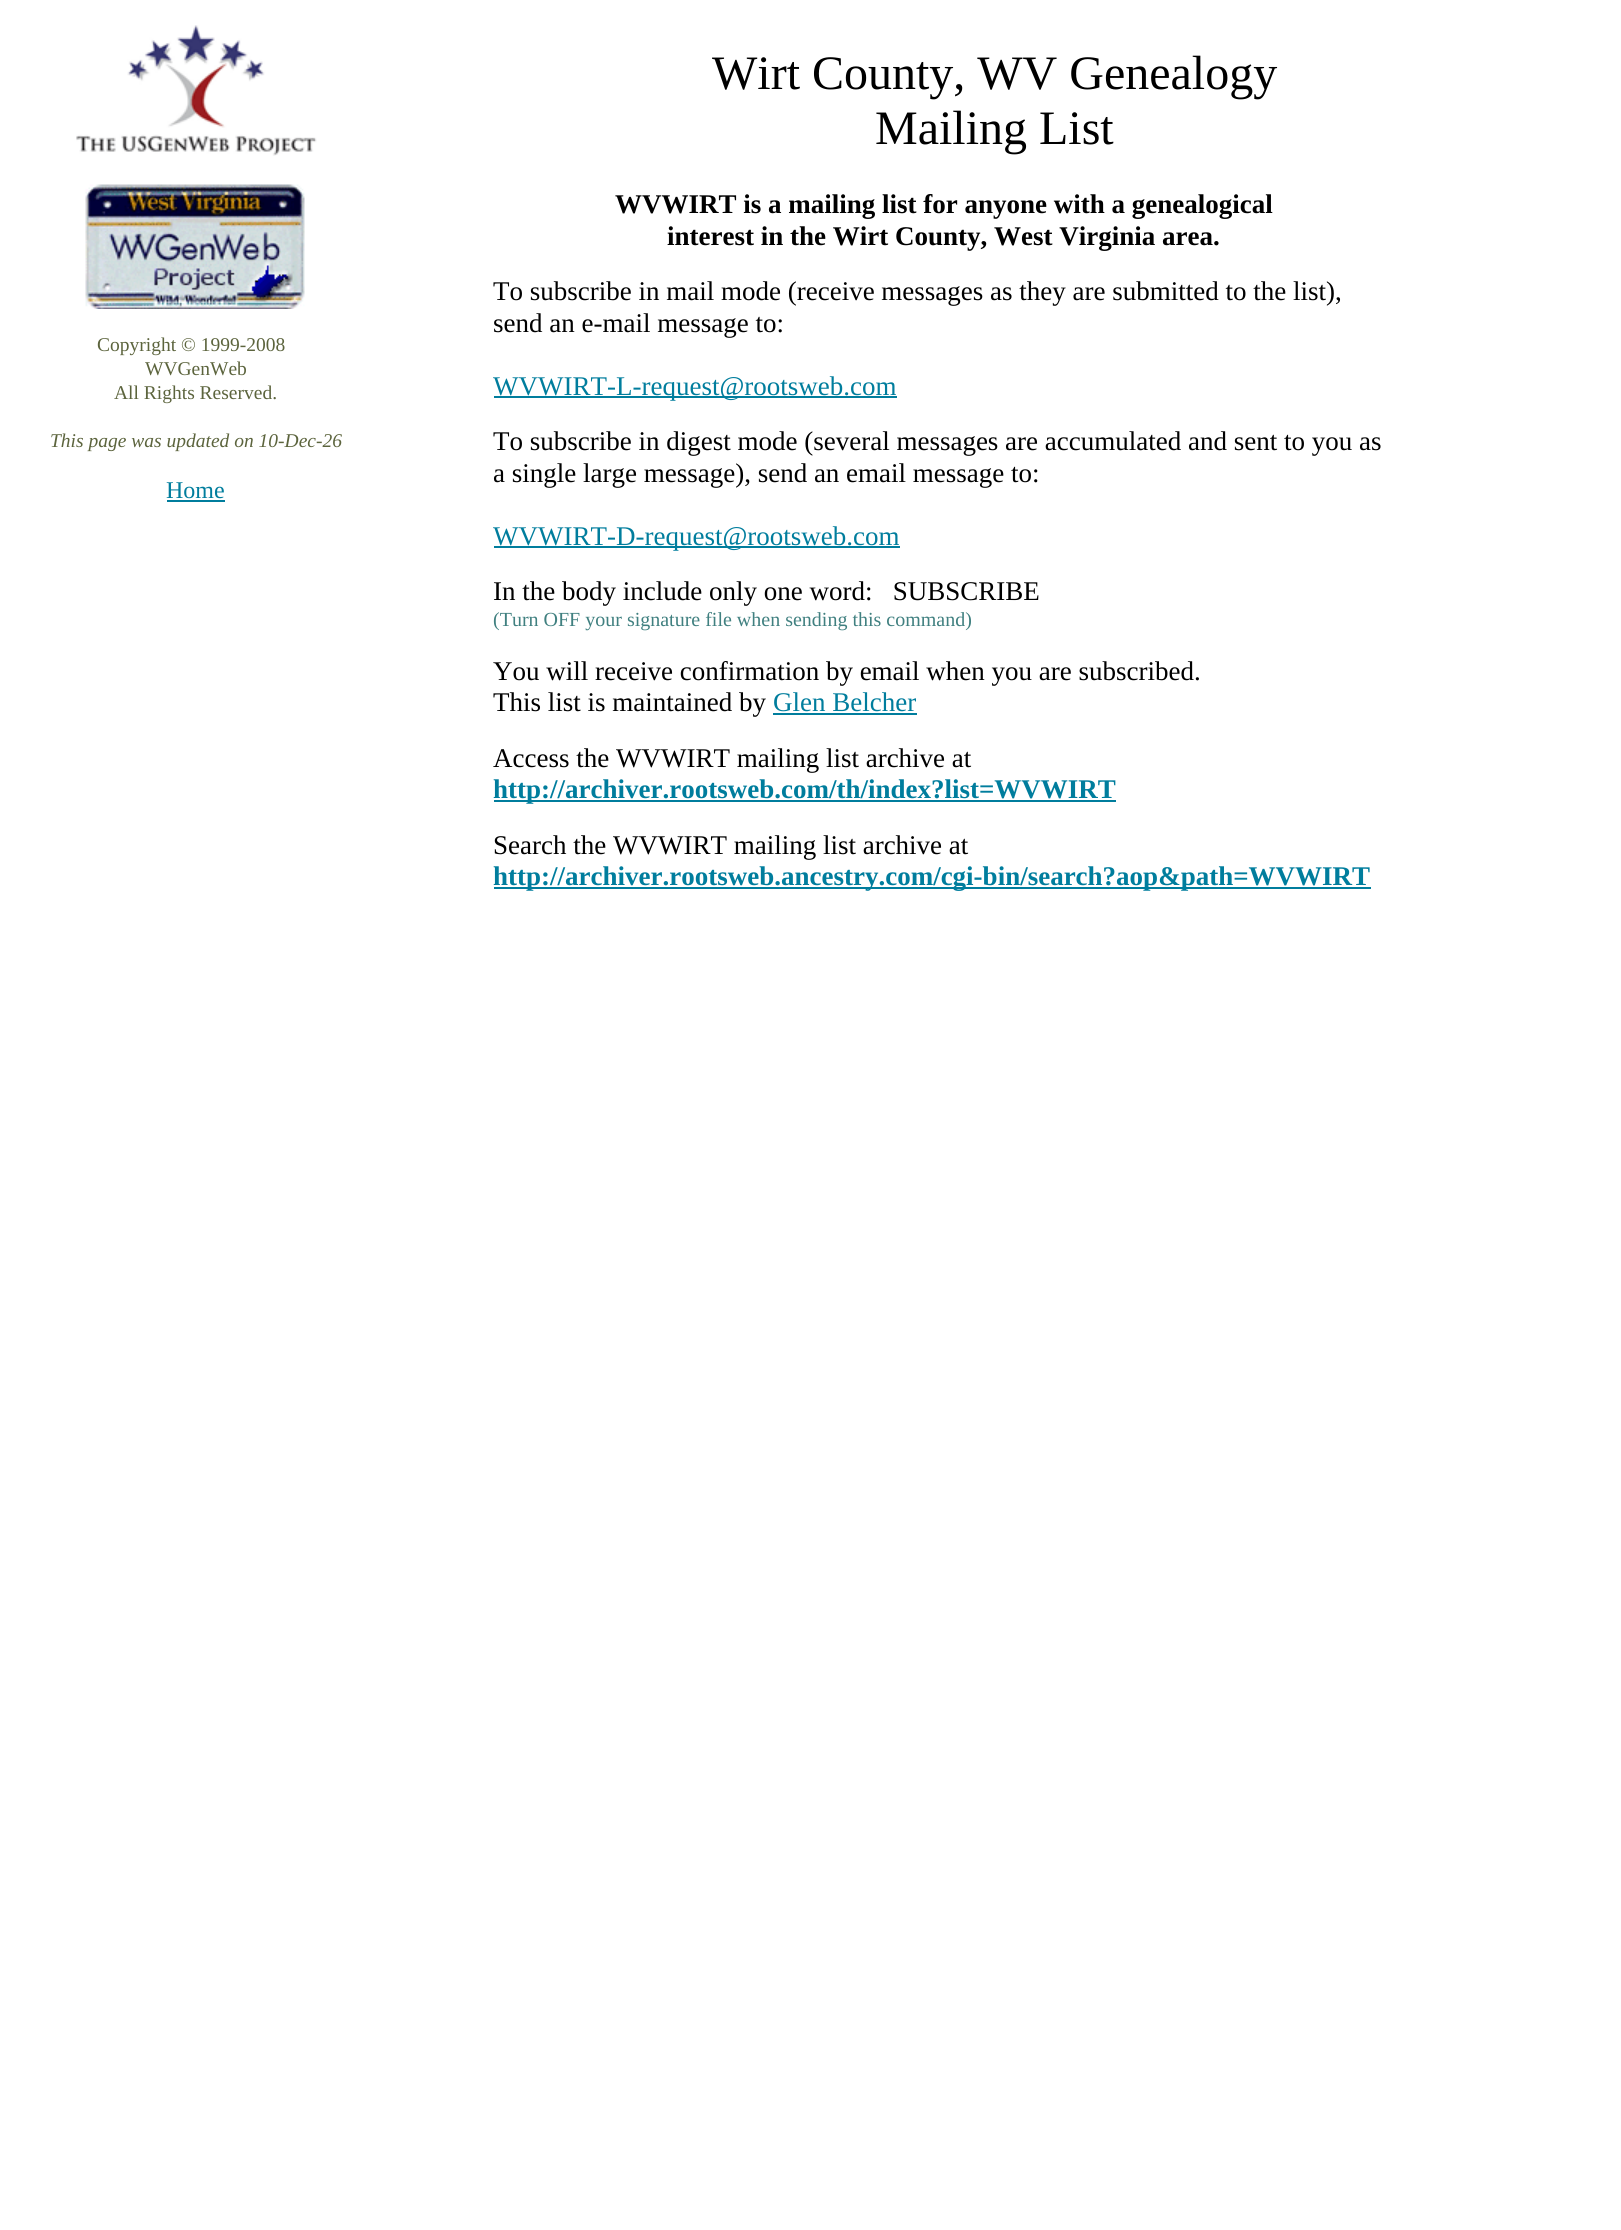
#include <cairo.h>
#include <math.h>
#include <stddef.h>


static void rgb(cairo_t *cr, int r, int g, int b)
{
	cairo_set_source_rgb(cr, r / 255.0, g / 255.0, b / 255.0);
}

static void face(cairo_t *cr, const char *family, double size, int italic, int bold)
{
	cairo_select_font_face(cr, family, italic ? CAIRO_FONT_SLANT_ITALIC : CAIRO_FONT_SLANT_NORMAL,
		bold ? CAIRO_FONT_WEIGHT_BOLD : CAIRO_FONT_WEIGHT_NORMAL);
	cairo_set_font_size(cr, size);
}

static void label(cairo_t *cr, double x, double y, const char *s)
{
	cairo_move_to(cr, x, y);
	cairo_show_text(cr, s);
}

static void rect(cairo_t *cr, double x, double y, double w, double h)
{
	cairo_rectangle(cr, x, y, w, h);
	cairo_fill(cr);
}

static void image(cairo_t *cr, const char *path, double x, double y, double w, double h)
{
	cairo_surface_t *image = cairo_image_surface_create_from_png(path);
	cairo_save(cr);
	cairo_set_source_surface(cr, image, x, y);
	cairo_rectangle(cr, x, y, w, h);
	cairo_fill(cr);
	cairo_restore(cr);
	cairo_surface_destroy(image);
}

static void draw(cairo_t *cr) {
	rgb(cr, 255, 255, 255);
	cairo_paint(cr);
	image(cr, "image0.png", 76, 25, 241, 131);
	image(cr, "image1.png", 85, 184, 220, 125);
	face(cr, "Liberation Serif", 19.5, 0, 0);
	rgb(cr, 92, 100, 61);
	label(cr, 97, 351, "Copyright © 1999-2008");
	label(cr, 145, 375, "WVGenWeb");
	label(cr, 114, 399, "All Rights Reserved.");
	face(cr, "Liberation Serif", 19.5, 1, 0);
	label(cr, 50, 447, "This page was updated on 10-Dec-26");
	face(cr, "Liberation Serif", 24, 0, 0);
	rgb(cr, 0, 125, 157);
	label(cr, 166, 498, "Home");
	rect(cr, 167, 500, 58, 2);
	face(cr, "Liberation Serif", 48, 0, 0);
	rgb(cr, 0, 0, 0);
	label(cr, 712, 89, "Wirt County, WV Genealogy");
	label(cr, 875, 144, "Mailing List");
	face(cr, "Liberation Serif", 27, 0, 1);
	label(cr, 615, 213, "WVWIRT is a mailing list for anyone with a genealogical");
	label(cr, 667, 245, "interest in the Wirt County, West Virginia area.");
	face(cr, "Liberation Serif", 27, 0, 0);
	label(cr, 493, 300, "To subscribe in mail mode (receive messages as they are submitted to the list),");
	label(cr, 493, 332, "send an e-mail message to:");
	rgb(cr, 0, 125, 157);
	rect(cr, 494, 396, 403, 2);
	label(cr, 493, 395, "WVWIRT-L-request@rootsweb.com");
	rgb(cr, 0, 0, 0);
	label(cr, 493, 450, "To subscribe in digest mode (several messages are accumulated and sent to you as");
	label(cr, 493, 482, "a single large message), send an email message to:");
	rgb(cr, 0, 125, 157);
	rect(cr, 494, 546, 406, 2);
	label(cr, 493, 545, "WVWIRT-D-request@rootsweb.com");
	rgb(cr, 0, 0, 0);
	label(cr, 493, 600, "In the body include only one word:   SUBSCRIBE");
	face(cr, "Liberation Serif", 20, 0, 0);
	rgb(cr, 64, 128, 128);
	label(cr, 493, 626, "(Turn OFF your signature file when sending this command)");
	face(cr, "Liberation Serif", 27, 0, 0);
	rgb(cr, 0, 0, 0);
	label(cr, 493, 680, "You will receive confirmation by email when you are subscribed.");
	label(cr, 493, 711, "This list is maintained by");
	rgb(cr, 0, 125, 157);
	label(cr, 773, 711, "Glen Belcher");
	rect(cr, 773, 713, 144, 2);
	rgb(cr, 0, 0, 0);
	label(cr, 493, 767, "Access the WVWIRT mailing list archive at");
	rgb(cr, 0, 125, 157);
	rect(cr, 494, 800, 622, 2);
	face(cr, "Liberation Serif", 27, 0, 1);
	label(cr, 493, 798, "http://archiver.rootsweb.com/th/index?list=WVWIRT");
	face(cr, "Liberation Serif", 27, 0, 0);
	rgb(cr, 0, 0, 0);
	label(cr, 493, 854, "Search the WVWIRT mailing list archive at");
	rgb(cr, 0, 125, 157);
	rect(cr, 494, 887, 877, 2);
	face(cr, "Liberation Serif", 27, 0, 1);
	label(cr, 493, 885, "http://archiver.rootsweb.ancestry.com/cgi-bin/search?aop&path=WVWIRT");
}

int main(void) {
	cairo_surface_t *surface = cairo_image_surface_create(CAIRO_FORMAT_RGB24, 1621, 2230);
	cairo_t *cr = cairo_create(surface);
	cairo_font_options_t *options = cairo_font_options_create();
	cairo_font_options_set_hint_metrics(options, CAIRO_HINT_METRICS_OFF);
	cairo_font_options_set_hint_style(options, CAIRO_HINT_STYLE_NONE);
	cairo_set_font_options(cr, options);
	cairo_set_miter_limit(cr, 4);
	draw(cr);
	cairo_surface_write_to_png(surface, "render.png");
	cairo_font_options_destroy(options);
	cairo_destroy(cr);
	cairo_surface_destroy(surface);
	return 0;
}
